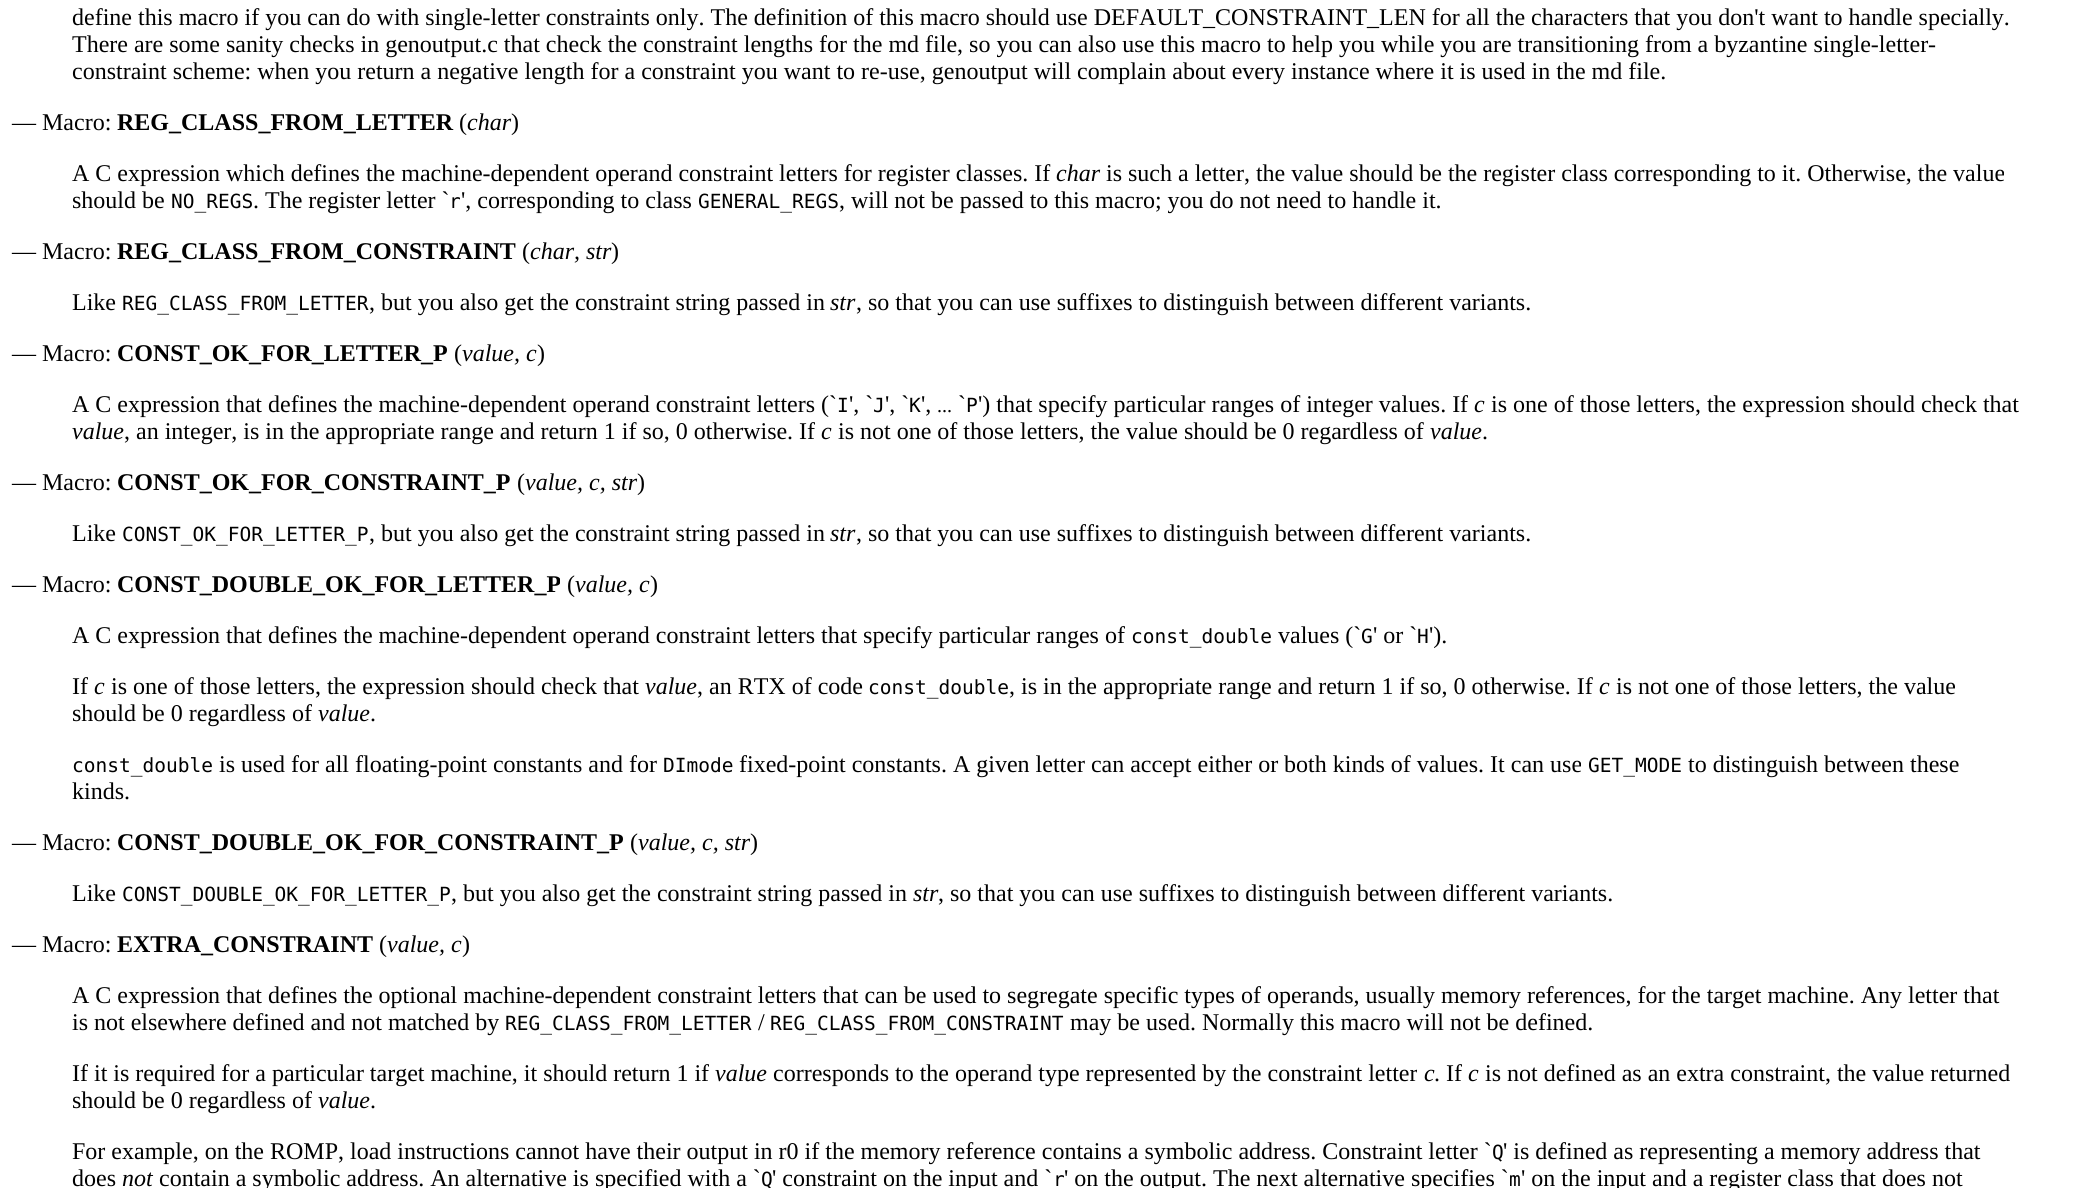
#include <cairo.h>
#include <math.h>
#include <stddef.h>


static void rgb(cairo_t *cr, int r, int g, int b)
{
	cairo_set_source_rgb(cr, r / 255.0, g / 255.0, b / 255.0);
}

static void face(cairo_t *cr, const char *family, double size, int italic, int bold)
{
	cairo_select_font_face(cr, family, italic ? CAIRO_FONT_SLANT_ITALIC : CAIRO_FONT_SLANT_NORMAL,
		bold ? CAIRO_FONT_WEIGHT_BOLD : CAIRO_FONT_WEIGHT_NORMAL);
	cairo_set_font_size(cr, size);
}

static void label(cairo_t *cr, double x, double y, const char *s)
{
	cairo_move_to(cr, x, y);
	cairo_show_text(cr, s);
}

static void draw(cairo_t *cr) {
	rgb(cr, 255, 255, 255);
	cairo_paint(cr);
	face(cr, "Liberation Serif", 24, 0, 0);
	rgb(cr, 0, 0, 0);
	label(cr, 72, 25, "define this macro if you can do with single-letter constraints only. The definition of this macro should use DEFAULT_CONSTRAINT_LEN for all the characters that you don't want to handle specially.");
	label(cr, 72, 52, "There are some sanity checks in genoutput.c that check the constraint lengths for the md file, so you can also use this macro to help you while you are transitioning from a byzantine single-letter-");
	label(cr, 72, 79, "constraint scheme: when you return a negative length for a constraint you want to re-use, genoutput will complain about every instance where it is used in the md file.");
	label(cr, 12, 130, "— Macro:");
	face(cr, "Liberation Serif", 24, 0, 1);
	label(cr, 117, 130, "REG_CLASS_FROM_LETTER");
	face(cr, "Liberation Serif", 24, 0, 0);
	label(cr, 459, 130, "(");
	face(cr, "Liberation Serif", 24, 1, 0);
	label(cr, 467, 130, "char");
	face(cr, "Liberation Serif", 24, 0, 0);
	label(cr, 511, 130, ")");
	label(cr, 72, 181, "A C expression which defines the machine-dependent operand constraint letters for register classes. If");
	face(cr, "Liberation Serif", 24, 1, 0);
	label(cr, 1056, 181, "char");
	face(cr, "Liberation Serif", 24, 0, 0);
	label(cr, 1106, 181, "is such a letter, the value should be the register class corresponding to it. Otherwise, the value");
	label(cr, 72, 208, "should be");
	face(cr, "DejaVu Sans Mono", 19.5, 0, 0);
	label(cr, 171, 208, "NO_REGS");
	face(cr, "Liberation Serif", 24, 0, 0);
	label(cr, 253, 208, ". The register letter `");
	face(cr, "DejaVu Sans Mono", 19.5, 0, 0);
	label(cr, 449, 208, "r");
	face(cr, "Liberation Serif", 24, 0, 0);
	label(cr, 461, 208, "', corresponding to class");
	face(cr, "DejaVu Sans Mono", 19.5, 0, 0);
	label(cr, 698, 208, "GENERAL_REGS");
	face(cr, "Liberation Serif", 24, 0, 0);
	label(cr, 839, 208, ", will not be passed to this macro; you do not need to handle it.");
	label(cr, 12, 259, "— Macro:");
	face(cr, "Liberation Serif", 24, 0, 1);
	label(cr, 117, 259, "REG_CLASS_FROM_CONSTRAINT");
	face(cr, "Liberation Serif", 24, 0, 0);
	label(cr, 522, 259, "(");
	face(cr, "Liberation Serif", 24, 1, 0);
	label(cr, 530, 259, "char, str");
	face(cr, "Liberation Serif", 24, 0, 0);
	label(cr, 611, 259, ")");
	label(cr, 72, 310, "Like");
	face(cr, "DejaVu Sans Mono", 19.5, 0, 0);
	label(cr, 122, 310, "REG_CLASS_FROM_LETTER");
	face(cr, "Liberation Serif", 24, 0, 0);
	label(cr, 369, 310, ", but you also get the constraint string passed in");
	face(cr, "Liberation Serif", 24, 1, 0);
	label(cr, 830, 310, "str");
	face(cr, "Liberation Serif", 24, 0, 0);
	label(cr, 856, 310, ", so that you can use suffixes to distinguish between different variants.");
	label(cr, 12, 361, "— Macro:");
	face(cr, "Liberation Serif", 24, 0, 1);
	label(cr, 117, 361, "CONST_OK_FOR_LETTER_P");
	face(cr, "Liberation Serif", 24, 0, 0);
	label(cr, 454, 361, "(");
	face(cr, "Liberation Serif", 24, 1, 0);
	label(cr, 462, 361, "value, c");
	face(cr, "Liberation Serif", 24, 0, 0);
	label(cr, 537, 361, ")");
	label(cr, 72, 412, "A C expression that defines the machine-dependent operand constraint letters (`");
	face(cr, "DejaVu Sans Mono", 19.5, 0, 0);
	label(cr, 837, 412, "I");
	face(cr, "Liberation Serif", 24, 0, 0);
	label(cr, 849, 412, "', `");
	face(cr, "DejaVu Sans Mono", 19.5, 0, 0);
	label(cr, 873, 412, "J");
	face(cr, "Liberation Serif", 24, 0, 0);
	label(cr, 885, 412, "', `");
	face(cr, "DejaVu Sans Mono", 19.5, 0, 0);
	label(cr, 909, 412, "K");
	face(cr, "Liberation Serif", 24, 0, 0);
	label(cr, 921, 412, "',");
	face(cr, "Liberation Serif", 20, 0, 0);
	label(cr, 937, 412, "...");
	face(cr, "Liberation Serif", 24, 0, 0);
	label(cr, 958, 412, "`");
	face(cr, "DejaVu Sans Mono", 19.5, 0, 0);
	label(cr, 966, 412, "P");
	face(cr, "Liberation Serif", 24, 0, 0);
	label(cr, 978, 412, "') that specify particular ranges of integer values. If");
	face(cr, "Liberation Serif", 24, 1, 0);
	label(cr, 1474, 412, "c");
	face(cr, "Liberation Serif", 24, 0, 0);
	label(cr, 1491, 412, "is one of those letters, the expression should check that");
	face(cr, "Liberation Serif", 24, 1, 0);
	label(cr, 72, 439, "value");
	face(cr, "Liberation Serif", 24, 0, 0);
	label(cr, 124, 439, ", an integer, is in the appropriate range and return 1 if so, 0 otherwise. If");
	face(cr, "Liberation Serif", 24, 1, 0);
	label(cr, 821, 439, "c");
	face(cr, "Liberation Serif", 24, 0, 0);
	label(cr, 838, 439, "is not one of those letters, the value should be 0 regardless of");
	face(cr, "Liberation Serif", 24, 1, 0);
	label(cr, 1430, 439, "value");
	face(cr, "Liberation Serif", 24, 0, 0);
	label(cr, 1482, 439, ".");
	label(cr, 12, 490, "— Macro:");
	face(cr, "Liberation Serif", 24, 0, 1);
	label(cr, 117, 490, "CONST_OK_FOR_CONSTRAINT_P");
	face(cr, "Liberation Serif", 24, 0, 0);
	label(cr, 517, 490, "(");
	face(cr, "Liberation Serif", 24, 1, 0);
	label(cr, 525, 490, "value, c, str");
	face(cr, "Liberation Serif", 24, 0, 0);
	label(cr, 637, 490, ")");
	label(cr, 72, 541, "Like");
	face(cr, "DejaVu Sans Mono", 19.5, 0, 0);
	label(cr, 122, 541, "CONST_OK_FOR_LETTER_P");
	face(cr, "Liberation Serif", 24, 0, 0);
	label(cr, 369, 541, ", but you also get the constraint string passed in");
	face(cr, "Liberation Serif", 24, 1, 0);
	label(cr, 830, 541, "str");
	face(cr, "Liberation Serif", 24, 0, 0);
	label(cr, 856, 541, ", so that you can use suffixes to distinguish between different variants.");
	label(cr, 12, 592, "— Macro:");
	face(cr, "Liberation Serif", 24, 0, 1);
	label(cr, 117, 592, "CONST_DOUBLE_OK_FOR_LETTER_P");
	face(cr, "Liberation Serif", 24, 0, 0);
	label(cr, 567, 592, "(");
	face(cr, "Liberation Serif", 24, 1, 0);
	label(cr, 575, 592, "value, c");
	face(cr, "Liberation Serif", 24, 0, 0);
	label(cr, 650, 592, ")");
	label(cr, 72, 643, "A C expression that defines the machine-dependent operand constraint letters that specify particular ranges of");
	face(cr, "DejaVu Sans Mono", 19.5, 0, 0);
	label(cr, 1131, 643, "const_double");
	face(cr, "Liberation Serif", 24, 0, 0);
	label(cr, 1278, 643, "values (`");
	face(cr, "DejaVu Sans Mono", 19.5, 0, 0);
	label(cr, 1361, 643, "G");
	face(cr, "Liberation Serif", 24, 0, 0);
	label(cr, 1373, 643, "' or `");
	face(cr, "DejaVu Sans Mono", 19.5, 0, 0);
	label(cr, 1417, 643, "H");
	face(cr, "Liberation Serif", 24, 0, 0);
	label(cr, 1429, 643, "').");
	label(cr, 72, 694, "If");
	face(cr, "Liberation Serif", 24, 1, 0);
	label(cr, 94, 694, "c");
	face(cr, "Liberation Serif", 24, 0, 0);
	label(cr, 111, 694, "is one of those letters, the expression should check that");
	face(cr, "Liberation Serif", 24, 1, 0);
	label(cr, 645, 694, "value");
	face(cr, "Liberation Serif", 24, 0, 0);
	label(cr, 697, 694, ", an RTX of code");
	face(cr, "DejaVu Sans Mono", 19.5, 0, 0);
	label(cr, 868, 694, "const_double");
	face(cr, "Liberation Serif", 24, 0, 0);
	label(cr, 1009, 694, ", is in the appropriate range and return 1 if so, 0 otherwise. If");
	face(cr, "Liberation Serif", 24, 1, 0);
	label(cr, 1599, 694, "c");
	face(cr, "Liberation Serif", 24, 0, 0);
	label(cr, 1616, 694, "is not one of those letters, the value");
	label(cr, 72, 721, "should be 0 regardless of");
	face(cr, "Liberation Serif", 24, 1, 0);
	label(cr, 318, 721, "value");
	face(cr, "Liberation Serif", 24, 0, 0);
	label(cr, 370, 721, ".");
	face(cr, "DejaVu Sans Mono", 19.5, 0, 0);
	label(cr, 72, 772, "const_double");
	face(cr, "Liberation Serif", 24, 0, 0);
	label(cr, 219, 772, "is used for all floating-point constants and for");
	face(cr, "DejaVu Sans Mono", 19.5, 0, 0);
	label(cr, 663, 772, "DImode");
	face(cr, "Liberation Serif", 24, 0, 0);
	label(cr, 739, 772, "fixed-point constants. A given letter can accept either or both kinds of values. It can use");
	face(cr, "DejaVu Sans Mono", 19.5, 0, 0);
	label(cr, 1588, 772, "GET_MODE");
	face(cr, "Liberation Serif", 24, 0, 0);
	label(cr, 1688, 772, "to distinguish between these");
	label(cr, 72, 799, "kinds.");
	label(cr, 12, 850, "— Macro:");
	face(cr, "Liberation Serif", 24, 0, 1);
	label(cr, 117, 850, "CONST_DOUBLE_OK_FOR_CONSTRAINT_P");
	face(cr, "Liberation Serif", 24, 0, 0);
	label(cr, 630, 850, "(");
	face(cr, "Liberation Serif", 24, 1, 0);
	label(cr, 638, 850, "value, c, str");
	face(cr, "Liberation Serif", 24, 0, 0);
	label(cr, 750, 850, ")");
	label(cr, 72, 901, "Like");
	face(cr, "DejaVu Sans Mono", 19.5, 0, 0);
	label(cr, 122, 901, "CONST_DOUBLE_OK_FOR_LETTER_P");
	face(cr, "Liberation Serif", 24, 0, 0);
	label(cr, 451, 901, ", but you also get the constraint string passed in");
	face(cr, "Liberation Serif", 24, 1, 0);
	label(cr, 913, 901, "str");
	face(cr, "Liberation Serif", 24, 0, 0);
	label(cr, 938, 901, ", so that you can use suffixes to distinguish between different variants.");
	label(cr, 12, 952, "— Macro:");
	face(cr, "Liberation Serif", 24, 0, 1);
	label(cr, 117, 952, "EXTRA_CONSTRAINT");
	face(cr, "Liberation Serif", 24, 0, 0);
	label(cr, 379, 952, "(");
	face(cr, "Liberation Serif", 24, 1, 0);
	label(cr, 387, 952, "value, c");
	face(cr, "Liberation Serif", 24, 0, 0);
	label(cr, 462, 952, ")");
	label(cr, 72, 1003, "A C expression that defines the optional machine-dependent constraint letters that can be used to segregate specific types of operands, usually memory references, for the target machine. Any letter that");
	label(cr, 72, 1030, "is not elsewhere defined and not matched by");
	face(cr, "DejaVu Sans Mono", 19.5, 0, 0);
	label(cr, 505, 1030, "REG_CLASS_FROM_LETTER");
	face(cr, "Liberation Serif", 24, 0, 0);
	label(cr, 758, 1030, "/");
	face(cr, "DejaVu Sans Mono", 19.5, 0, 0);
	label(cr, 770, 1030, "REG_CLASS_FROM_CONSTRAINT");
	face(cr, "Liberation Serif", 24, 0, 0);
	label(cr, 1070, 1030, "may be used. Normally this macro will not be defined.");
	label(cr, 72, 1081, "If it is required for a particular target machine, it should return 1 if");
	face(cr, "Liberation Serif", 24, 1, 0);
	label(cr, 715, 1081, "value");
	face(cr, "Liberation Serif", 24, 0, 0);
	label(cr, 773, 1081, "corresponds to the operand type represented by the constraint letter");
	face(cr, "Liberation Serif", 24, 1, 0);
	label(cr, 1424, 1081, "c");
	face(cr, "Liberation Serif", 24, 0, 0);
	label(cr, 1434, 1081, ". If");
	face(cr, "Liberation Serif", 24, 1, 0);
	label(cr, 1468, 1081, "c");
	face(cr, "Liberation Serif", 24, 0, 0);
	label(cr, 1485, 1081, "is not defined as an extra constraint, the value returned");
	label(cr, 72, 1108, "should be 0 regardless of");
	face(cr, "Liberation Serif", 24, 1, 0);
	label(cr, 318, 1108, "value");
	face(cr, "Liberation Serif", 24, 0, 0);
	label(cr, 370, 1108, ".");
	label(cr, 72, 1159, "For example, on the ROMP, load instructions cannot have their output in r0 if the memory reference contains a symbolic address. Constraint letter `");
	face(cr, "DejaVu Sans Mono", 19.5, 0, 0);
	label(cr, 1492, 1159, "Q");
	face(cr, "Liberation Serif", 24, 0, 0);
	label(cr, 1503, 1159, "' is defined as representing a memory address that");
	label(cr, 72, 1186, "does");
	face(cr, "Liberation Serif", 24, 1, 0);
	label(cr, 122, 1186, "not");
	face(cr, "Liberation Serif", 24, 0, 0);
	label(cr, 159, 1186, "contain a symbolic address. An alternative is specified with a `");
	face(cr, "DejaVu Sans Mono", 19.5, 0, 0);
	label(cr, 761, 1186, "Q");
	face(cr, "Liberation Serif", 24, 0, 0);
	label(cr, 772, 1186, "' constraint on the input and `");
	face(cr, "DejaVu Sans Mono", 19.5, 0, 0);
	label(cr, 1053, 1186, "r");
	face(cr, "Liberation Serif", 24, 0, 0);
	label(cr, 1064, 1186, "' on the output. The next alternative specifies `");
	face(cr, "DejaVu Sans Mono", 19.5, 0, 0);
	label(cr, 1509, 1186, "m");
	face(cr, "Liberation Serif", 24, 0, 0);
	label(cr, 1521, 1186, "' on the input and a register class that does not");
}

int main(void) {
	cairo_surface_t *surface = cairo_image_surface_create(CAIRO_FORMAT_RGB24, 2092, 1188);
	cairo_t *cr = cairo_create(surface);
	cairo_font_options_t *options = cairo_font_options_create();
	cairo_font_options_set_hint_metrics(options, CAIRO_HINT_METRICS_OFF);
	cairo_font_options_set_hint_style(options, CAIRO_HINT_STYLE_NONE);
	cairo_set_font_options(cr, options);
	cairo_set_miter_limit(cr, 4);
	draw(cr);
	cairo_surface_write_to_png(surface, "render.png");
	cairo_font_options_destroy(options);
	cairo_destroy(cr);
	cairo_surface_destroy(surface);
	return 0;
}
